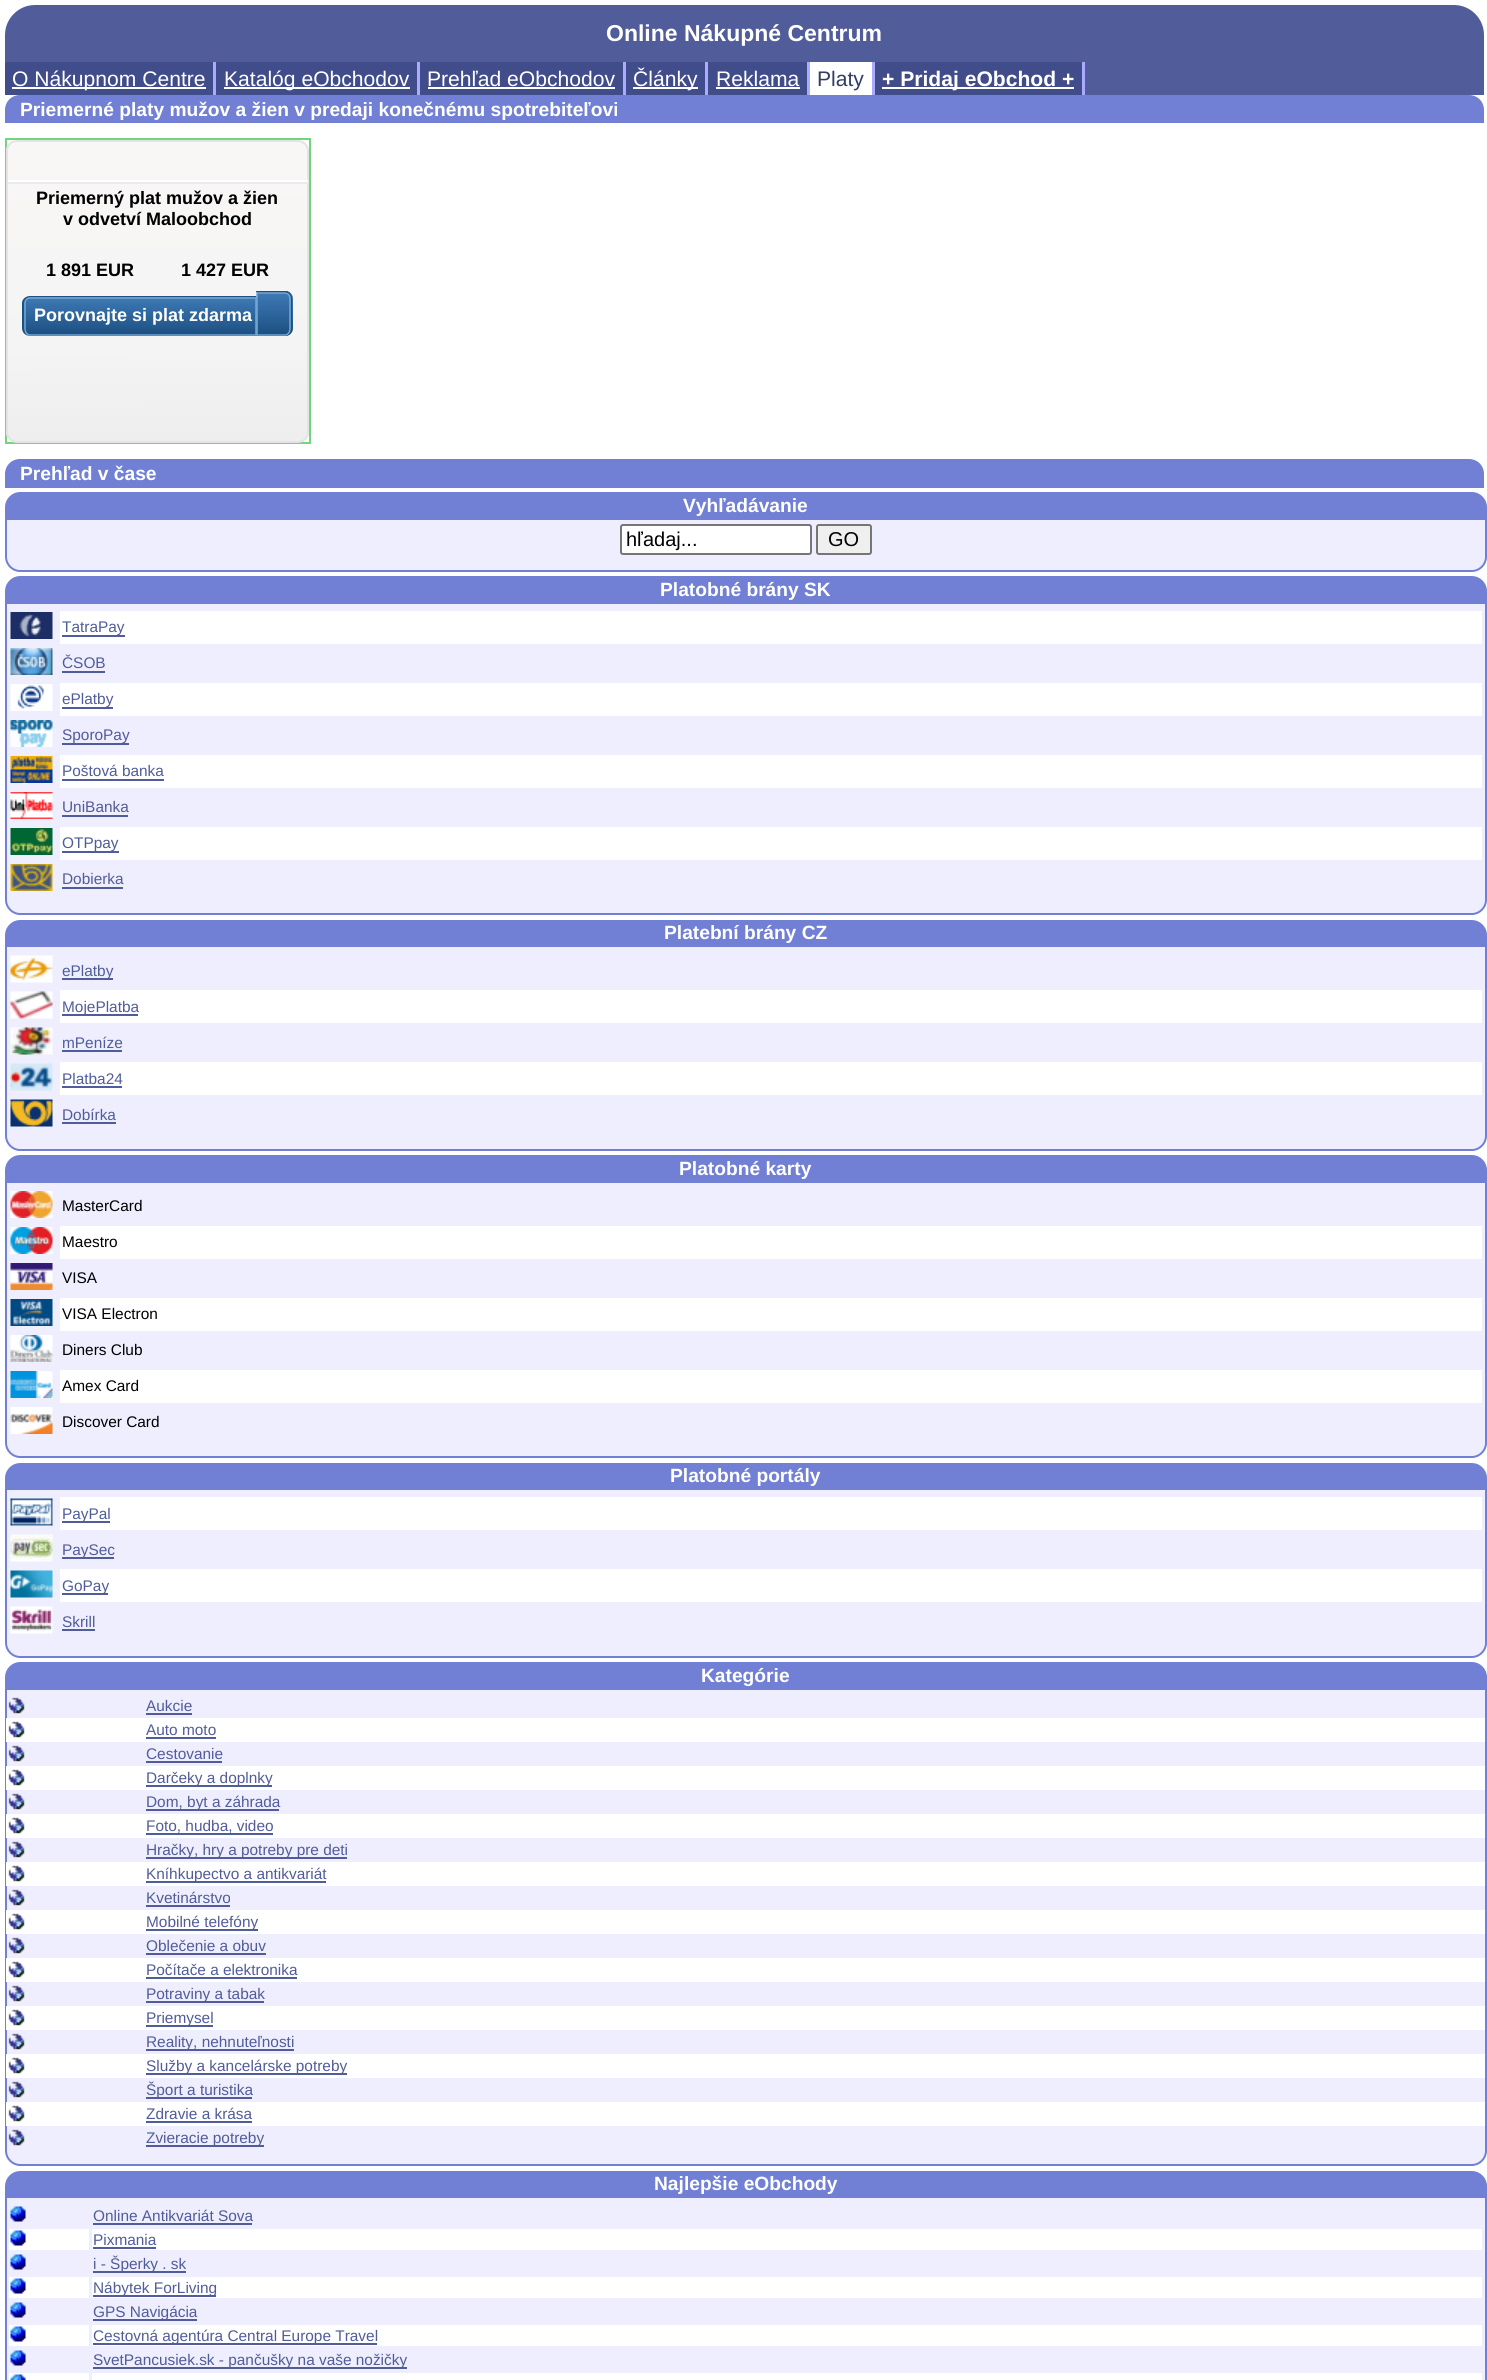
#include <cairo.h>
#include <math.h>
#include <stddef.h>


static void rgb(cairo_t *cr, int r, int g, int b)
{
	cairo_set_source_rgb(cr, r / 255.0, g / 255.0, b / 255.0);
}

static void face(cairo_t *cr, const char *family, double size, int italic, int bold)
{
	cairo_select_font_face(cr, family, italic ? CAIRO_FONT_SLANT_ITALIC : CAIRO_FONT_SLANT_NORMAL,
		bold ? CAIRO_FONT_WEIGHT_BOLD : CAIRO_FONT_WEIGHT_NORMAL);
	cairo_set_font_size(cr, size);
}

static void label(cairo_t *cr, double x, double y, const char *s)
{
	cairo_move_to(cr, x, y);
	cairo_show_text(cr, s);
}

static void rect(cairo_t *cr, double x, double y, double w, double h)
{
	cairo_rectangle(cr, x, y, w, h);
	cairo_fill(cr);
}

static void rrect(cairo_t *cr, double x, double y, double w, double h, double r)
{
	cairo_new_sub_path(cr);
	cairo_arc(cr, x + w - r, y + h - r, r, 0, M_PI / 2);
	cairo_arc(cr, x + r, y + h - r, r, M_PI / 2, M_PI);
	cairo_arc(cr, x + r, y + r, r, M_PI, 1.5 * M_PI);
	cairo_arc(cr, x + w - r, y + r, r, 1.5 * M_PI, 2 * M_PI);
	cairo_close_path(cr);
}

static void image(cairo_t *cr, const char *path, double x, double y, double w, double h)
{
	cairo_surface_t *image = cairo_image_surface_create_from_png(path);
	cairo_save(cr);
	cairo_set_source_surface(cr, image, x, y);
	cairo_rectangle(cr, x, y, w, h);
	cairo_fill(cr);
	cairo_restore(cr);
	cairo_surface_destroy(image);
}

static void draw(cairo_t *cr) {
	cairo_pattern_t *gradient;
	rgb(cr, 255, 255, 255);
	cairo_paint(cr);
	rgb(cr, 81, 92, 154);
	cairo_new_path(cr);
	cairo_move_to(cr, 35, 5);
	cairo_line_to(cr, 1454, 5);
	cairo_curve_to(cr, 1470.5, 5, 1484, 18.5, 1484, 35);
	cairo_line_to(cr, 1484, 62);
	cairo_line_to(cr, 5, 62);
	cairo_line_to(cr, 5, 35);
	cairo_curve_to(cr, 5, 18.5, 18.5, 5, 35, 5);
	cairo_close_path(cr);
	cairo_fill(cr);
	face(cr, "Liberation Sans", 23, 0, 1);
	rgb(cr, 255, 255, 255);
	label(cr, 606, 41, "Online Nákupné Centrum");
	rgb(cr, 81, 92, 154);
	rect(cr, 1085, 62, 399, 33);
	rgb(cr, 65, 76, 138);
	rect(cr, 5, 62, 208, 33);
	rgb(cr, 170, 170, 255);
	rect(cr, 213, 62, 3, 33);
	rgb(cr, 255, 255, 255);
	rect(cr, 12, 87, 194, 2);
	face(cr, "Liberation Sans", 21.1, 0, 0);
	label(cr, 12, 86, "O Nákupnom Centre");
	rgb(cr, 65, 76, 138);
	rect(cr, 216, 62, 201, 33);
	rgb(cr, 170, 170, 255);
	rect(cr, 417, 62, 3, 33);
	rgb(cr, 255, 255, 255);
	rect(cr, 224, 87, 186, 2);
	label(cr, 224, 86, "Katalóg eObchodov");
	rgb(cr, 65, 76, 138);
	rect(cr, 420, 62, 203, 33);
	rgb(cr, 170, 170, 255);
	rect(cr, 623, 62, 3, 33);
	rgb(cr, 255, 255, 255);
	label(cr, 427, 86, "Prehľad eObchodov");
	rect(cr, 428, 87, 187, 2);
	rgb(cr, 65, 76, 138);
	rect(cr, 626, 62, 79, 33);
	rgb(cr, 170, 170, 255);
	rect(cr, 705, 62, 3, 33);
	rgb(cr, 255, 255, 255);
	rect(cr, 633, 87, 65, 2);
	label(cr, 633, 86, "Články");
	rgb(cr, 65, 76, 138);
	rect(cr, 708, 62, 99, 33);
	rgb(cr, 170, 170, 255);
	rect(cr, 807, 62, 3, 33);
	rgb(cr, 255, 255, 255);
	label(cr, 716, 86, "Reklama");
	rect(cr, 716, 87, 84, 2);
	rgb(cr, 170, 170, 255);
	rect(cr, 872, 62, 3, 33);
	rgb(cr, 49, 60, 106);
	label(cr, 817, 86, "Platy");
	rgb(cr, 65, 76, 138);
	rect(cr, 875, 62, 207, 33);
	rgb(cr, 170, 170, 255);
	rect(cr, 1082, 62, 3, 33);
	rgb(cr, 255, 255, 255);
	rect(cr, 882, 87, 192, 2);
	face(cr, "Liberation Sans", 21.1, 0, 1);
	label(cr, 882, 86, "+ Pridaj eObchod +");
	rgb(cr, 113, 128, 213);
	cairo_new_path(cr);
	cairo_move_to(cr, 20, 95);
	cairo_line_to(cr, 1469, 95);
	cairo_curve_to(cr, 1477.5, 95, 1484, 101.5, 1484, 110);
	cairo_line_to(cr, 1484, 123);
	cairo_line_to(cr, 5, 123);
	cairo_line_to(cr, 5, 110);
	cairo_curve_to(cr, 5, 101.5, 11.5, 95, 20, 95);
	cairo_close_path(cr);
	cairo_fill(cr);
	face(cr, "Liberation Sans", 19.2, 0, 1);
	rgb(cr, 255, 255, 255);
	label(cr, 20, 116, "Priemerné platy mužov a žien v predaji konečnému spotrebiteľovi");
	cairo_rectangle(cr, 6, 139, 304, 304);
	rgb(cr, 113, 213, 128);
	cairo_stroke(cr);
	cairo_save(cr);
	rrect(cr, 6, 140, 303, 303, 11);
	cairo_clip(cr);
	gradient = cairo_pattern_create_linear(157, 141, 158, 441);
	cairo_pattern_add_color_stop_rgba(gradient, 0, 0.976, 0.969, 0.965, 1);
	cairo_pattern_add_color_stop_rgba(gradient, 0.68, 0.957, 0.957, 0.957, 1);
	cairo_pattern_add_color_stop_rgba(gradient, 1, 0.933, 0.933, 0.933, 1);
	cairo_set_source(cr, gradient);
	cairo_pattern_destroy(gradient);
	rect(cr, 6, 141, 303, 300);
	cairo_restore(cr);
	rrect(cr, 7, 141, 301, 301, 10);
	rgb(cr, 228, 228, 228);
	cairo_stroke(cr);
	rgb(cr, 255, 255, 255);
	rect(cr, 8, 180, 300, 2);
	rgb(cr, 236, 235, 234);
	rect(cr, 8, 182, 300, 2);
	face(cr, "Liberation Sans", 18, 0, 1);
	rgb(cr, 0, 0, 0);
	label(cr, 36, 204, "Priemerný plat mužov a žien");
	label(cr, 63, 225, "v odvetví Maloobchod");
	label(cr, 46, 276, "1 891 EUR");
	label(cr, 181, 276, "1 427 EUR");
	cairo_save(cr);
	cairo_new_path(cr);
	cairo_move_to(cr, 31, 296);
	cairo_line_to(cr, 257, 296);
	cairo_line_to(cr, 257, 336);
	cairo_line_to(cr, 31, 336);
	cairo_curve_to(cr, 26.5, 336, 23, 332.5, 23, 328);
	cairo_line_to(cr, 23, 304);
	cairo_curve_to(cr, 23, 299.5, 26.5, 296, 31, 296);
	cairo_close_path(cr);
	cairo_clip(cr);
	gradient = cairo_pattern_create_linear(140, 297, 140, 336);
	cairo_pattern_add_color_stop_rgba(gradient, 0, 0.243, 0.478, 0.714, 1);
	cairo_pattern_add_color_stop_rgba(gradient, 1, 0.106, 0.306, 0.502, 1);
	cairo_set_source(cr, gradient);
	cairo_pattern_destroy(gradient);
	cairo_new_path(cr);
	cairo_move_to(cr, 23, 297);
	cairo_line_to(cr, 257, 297);
	cairo_line_to(cr, 257, 336);
	cairo_line_to(cr, 31, 336);
	cairo_curve_to(cr, 26.5, 336, 23, 332.5, 23, 328);
	cairo_close_path(cr);
	cairo_fill(cr);
	cairo_restore(cr);
	cairo_new_path(cr);
	cairo_move_to(cr, 30, 298);
	cairo_line_to(cr, 256, 298);
	cairo_line_to(cr, 256, 335);
	cairo_line_to(cr, 30, 335);
	cairo_curve_to(cr, 27, 335, 25, 332, 25, 328.5);
	cairo_line_to(cr, 25, 303);
	cairo_curve_to(cr, 25, 300, 27, 298, 30, 298);
	cairo_close_path(cr);
	rgb(cr, 117, 168, 211);
	cairo_set_line_width(cr, 1.5);
	cairo_stroke(cr);
	rgb(cr, 28, 81, 131);
	cairo_set_fill_rule(cr, CAIRO_FILL_RULE_EVEN_ODD);
	cairo_new_path(cr);
	cairo_move_to(cr, 30, 296);
	cairo_line_to(cr, 256, 296);
	cairo_line_to(cr, 256, 336);
	cairo_line_to(cr, 30, 336);
	cairo_curve_to(cr, 26, 336, 22, 333, 22, 328);
	cairo_line_to(cr, 22, 303);
	cairo_curve_to(cr, 22, 299, 26, 296, 30, 296);
	cairo_close_path(cr);
	cairo_move_to(cr, 30, 297);
	cairo_line_to(cr, 256, 297);
	cairo_line_to(cr, 256, 336);
	cairo_line_to(cr, 30, 336);
	cairo_curve_to(cr, 27, 336, 24, 333, 24, 328);
	cairo_line_to(cr, 24, 303);
	cairo_curve_to(cr, 24, 300, 27, 297, 30, 297);
	cairo_close_path(cr);
	cairo_fill(cr);
	rgb(cr, 255, 255, 255);
	label(cr, 34, 321, "Porovnajte si plat zdarma");
	rgb(cr, 133, 191, 73);
	cairo_new_path(cr);
	cairo_move_to(cr, 257, 291);
	cairo_line_to(cr, 285, 291);
	cairo_curve_to(cr, 289.5, 291, 293, 294.5, 293, 299);
	cairo_line_to(cr, 293, 328);
	cairo_curve_to(cr, 293, 332.5, 289.5, 336, 285, 336);
	cairo_line_to(cr, 257, 336);
	cairo_close_path(cr);
	cairo_fill(cr);
	cairo_save(cr);
	cairo_set_fill_rule(cr, CAIRO_FILL_RULE_WINDING);
	cairo_new_path(cr);
	cairo_move_to(cr, 257, 291);
	cairo_line_to(cr, 285, 291);
	cairo_curve_to(cr, 289.5, 291, 293, 294.5, 293, 299);
	cairo_line_to(cr, 293, 328);
	cairo_curve_to(cr, 293, 332.5, 289.5, 336, 285, 336);
	cairo_line_to(cr, 257, 336);
	cairo_close_path(cr);
	cairo_clip(cr);
	gradient = cairo_pattern_create_linear(274, 249, 274, 293);
	cairo_pattern_add_color_stop_rgba(gradient, 0, 0.243, 0.478, 0.714, 1);
	cairo_pattern_add_color_stop_rgba(gradient, 1, 0.106, 0.306, 0.502, 1);
	cairo_set_source(cr, gradient);
	cairo_pattern_destroy(gradient);
	rect(cr, 257, 291, 36, 2);
	gradient = cairo_pattern_create_linear(274, 293, 274, 336);
	cairo_pattern_add_color_stop_rgba(gradient, 0, 0.243, 0.478, 0.714, 1);
	cairo_pattern_add_color_stop_rgba(gradient, 1, 0.106, 0.306, 0.502, 1);
	cairo_set_source(cr, gradient);
	cairo_pattern_destroy(gradient);
	cairo_new_path(cr);
	cairo_move_to(cr, 257, 293);
	cairo_line_to(cr, 293, 293);
	cairo_line_to(cr, 293, 328);
	cairo_curve_to(cr, 293, 332.5, 289.5, 336, 285, 336);
	cairo_line_to(cr, 257, 336);
	cairo_close_path(cr);
	cairo_fill(cr);
	cairo_restore(cr);
	cairo_new_path(cr);
	cairo_move_to(cr, 257, 293);
	cairo_line_to(cr, 285, 293);
	cairo_curve_to(cr, 288, 293, 290, 295.5, 290, 298.5);
	cairo_line_to(cr, 290, 328.5);
	cairo_curve_to(cr, 290, 332, 288, 335, 285, 335);
	cairo_line_to(cr, 257, 335);
	cairo_close_path(cr);
	rgb(cr, 117, 168, 211);
	cairo_stroke(cr);
	rgb(cr, 28, 81, 131);
	cairo_new_path(cr);
	cairo_move_to(cr, 256, 291);
	cairo_line_to(cr, 285, 291);
	cairo_curve_to(cr, 289, 291, 292, 294, 292, 298);
	cairo_line_to(cr, 292, 328);
	cairo_curve_to(cr, 292, 333, 289, 336, 285, 336);
	cairo_line_to(cr, 256, 336);
	cairo_close_path(cr);
	cairo_move_to(cr, 256, 292);
	cairo_line_to(cr, 285, 292);
	cairo_curve_to(cr, 288, 292, 291, 295, 291, 298);
	cairo_line_to(cr, 291, 328);
	cairo_curve_to(cr, 291, 333, 288, 336, 285, 336);
	cairo_line_to(cr, 256, 336);
	cairo_close_path(cr);
	cairo_fill(cr);
	rgb(cr, 113, 128, 213);
	cairo_new_path(cr);
	cairo_move_to(cr, 20, 459);
	cairo_line_to(cr, 1469, 459);
	cairo_curve_to(cr, 1477.5, 459, 1484, 465.5, 1484, 474);
	cairo_line_to(cr, 1484, 488);
	cairo_line_to(cr, 5, 488);
	cairo_line_to(cr, 5, 474);
	cairo_curve_to(cr, 5, 465.5, 11.5, 459, 20, 459);
	cairo_close_path(cr);
	cairo_fill(cr);
	face(cr, "Liberation Sans", 19.2, 0, 1);
	rgb(cr, 255, 255, 255);
	label(cr, 20, 480, "Prehľad v čase");
	rgb(cr, 113, 128, 213);
	cairo_new_path(cr);
	cairo_move_to(cr, 20, 493);
	cairo_line_to(cr, 1472, 493);
	cairo_curve_to(cr, 1479.5, 493, 1486, 499.5, 1486, 507);
	cairo_line_to(cr, 1486, 517);
	cairo_line_to(cr, 6, 517);
	cairo_line_to(cr, 6, 507);
	cairo_curve_to(cr, 6, 499.5, 12.5, 493, 20, 493);
	cairo_close_path(cr);
	cairo_fill_preserve(cr);
	cairo_set_line_width(cr, 2);
	cairo_stroke(cr);
	rgb(cr, 255, 255, 255);
	label(cr, 683, 512, "Vyhľadávanie");
	rgb(cr, 238, 238, 255);
	cairo_new_path(cr);
	cairo_move_to(cr, 6, 519);
	cairo_line_to(cr, 1486, 519);
	cairo_line_to(cr, 1486, 557);
	cairo_curve_to(cr, 1486, 564.5, 1479.5, 571, 1472, 571);
	cairo_line_to(cr, 20, 571);
	cairo_curve_to(cr, 12.5, 571, 6, 564.5, 6, 557);
	cairo_close_path(cr);
	cairo_fill_preserve(cr);
	rgb(cr, 113, 128, 213);
	cairo_stroke(cr);
	rgb(cr, 255, 255, 255);
	rrect(cr, 621, 525, 190, 29, 2);
	cairo_fill_preserve(cr);
	rgb(cr, 118, 118, 118);
	cairo_stroke(cr);
	face(cr, "Liberation Sans", 20, 0, 0);
	rgb(cr, 0, 0, 0);
	label(cr, 626, 546, "hľadaj...");
	rgb(cr, 239, 239, 239);
	rrect(cr, 817, 525, 54, 29, 2);
	cairo_fill_preserve(cr);
	rgb(cr, 118, 118, 118);
	cairo_stroke(cr);
	rgb(cr, 0, 0, 0);
	label(cr, 828, 546, "GO");
	rgb(cr, 113, 128, 213);
	cairo_new_path(cr);
	cairo_move_to(cr, 20, 577);
	cairo_line_to(cr, 1472, 577);
	cairo_curve_to(cr, 1479.5, 577, 1486, 583.5, 1486, 591);
	cairo_line_to(cr, 1486, 601);
	cairo_line_to(cr, 6, 601);
	cairo_line_to(cr, 6, 591);
	cairo_curve_to(cr, 6, 583.5, 12.5, 577, 20, 577);
	cairo_close_path(cr);
	cairo_fill_preserve(cr);
	cairo_stroke(cr);
	face(cr, "Liberation Sans", 19.2, 0, 1);
	rgb(cr, 255, 255, 255);
	label(cr, 660, 596, "Platobné brány SK");
	rgb(cr, 238, 238, 255);
	cairo_new_path(cr);
	cairo_move_to(cr, 6, 603);
	cairo_line_to(cr, 1486, 603);
	cairo_line_to(cr, 1486, 900);
	cairo_curve_to(cr, 1486, 907.5, 1479.5, 914, 1472, 914);
	cairo_line_to(cr, 20, 914);
	cairo_curve_to(cr, 12.5, 914, 6, 907.5, 6, 900);
	cairo_close_path(cr);
	cairo_fill_preserve(cr);
	rgb(cr, 113, 128, 213);
	cairo_stroke(cr);
	image(cr, "image0.png", 10, 612, 43, 27);
	rgb(cr, 255, 255, 255);
	rect(cr, 60, 611, 1422, 33);
	rgb(cr, 81, 92, 154);
	rect(cr, 62, 635, 63, 2);
	face(cr, "Liberation Sans", 15.4, 0, 0);
	label(cr, 62, 632, "TatraPay");
	image(cr, "image1.png", 10, 648, 43, 27);
	label(cr, 62, 668, "ČSOB");
	rect(cr, 62, 671, 43, 2);
	image(cr, "image2.png", 10, 684, 43, 27);
	rgb(cr, 255, 255, 255);
	rect(cr, 60, 683, 1422, 33);
	rgb(cr, 81, 92, 154);
	rect(cr, 62, 707, 51, 2);
	label(cr, 62, 704, "ePlatby");
	image(cr, "image3.png", 10, 720, 43, 27);
	rect(cr, 62, 743, 67, 2);
	label(cr, 62, 740, "SporoPay");
	image(cr, "image4.png", 10, 756, 43, 27);
	rgb(cr, 255, 255, 255);
	rect(cr, 60, 755, 1422, 33);
	rgb(cr, 81, 92, 154);
	label(cr, 62, 776, "Poštová banka");
	rect(cr, 62, 779, 102, 2);
	image(cr, "image5.png", 10, 792, 43, 27);
	label(cr, 62, 812, "UniBanka");
	rect(cr, 62, 815, 66, 2);
	image(cr, "image6.png", 10, 828, 43, 27);
	rgb(cr, 255, 255, 255);
	rect(cr, 60, 827, 1422, 33);
	rgb(cr, 81, 92, 154);
	rect(cr, 62, 851, 57, 2);
	label(cr, 62, 848, "OTPpay");
	image(cr, "image7.png", 10, 864, 43, 27);
	label(cr, 62, 884, "Dobierka");
	rect(cr, 62, 887, 61, 2);
	rgb(cr, 113, 128, 213);
	cairo_new_path(cr);
	cairo_move_to(cr, 20, 921);
	cairo_line_to(cr, 1472, 921);
	cairo_curve_to(cr, 1479.5, 921, 1486, 927.5, 1486, 935);
	cairo_line_to(cr, 1486, 944);
	cairo_line_to(cr, 6, 944);
	cairo_line_to(cr, 6, 935);
	cairo_curve_to(cr, 6, 927.5, 12.5, 921, 20, 921);
	cairo_close_path(cr);
	cairo_fill_preserve(cr);
	cairo_stroke(cr);
	face(cr, "Liberation Sans", 19.2, 0, 1);
	rgb(cr, 255, 255, 255);
	label(cr, 664, 939, "Platební brány CZ");
	rgb(cr, 238, 238, 255);
	cairo_new_path(cr);
	cairo_move_to(cr, 6, 946);
	cairo_line_to(cr, 1486, 946);
	cairo_line_to(cr, 1486, 1136);
	cairo_curve_to(cr, 1486, 1143.5, 1479.5, 1150, 1472, 1150);
	cairo_line_to(cr, 20, 1150);
	cairo_curve_to(cr, 12.5, 1150, 6, 1143.5, 6, 1136);
	cairo_close_path(cr);
	cairo_fill_preserve(cr);
	rgb(cr, 113, 128, 213);
	cairo_stroke(cr);
	image(cr, "image8.png", 10, 955, 43, 28);
	rgb(cr, 81, 92, 154);
	rect(cr, 62, 978, 51, 2);
	face(cr, "Liberation Sans", 15.4, 0, 0);
	label(cr, 62, 976, "ePlatby");
	image(cr, "image9.png", 10, 991, 43, 28);
	rgb(cr, 255, 255, 255);
	rect(cr, 60, 990, 1422, 33);
	rgb(cr, 81, 92, 154);
	rect(cr, 62, 1014, 76, 2);
	label(cr, 62, 1012, "MojePlatba");
	image(cr, "image10.png", 10, 1027, 43, 28);
	label(cr, 62, 1048, "mPeníze");
	rect(cr, 62, 1050, 60, 2);
	image(cr, "image11.png", 10, 1063, 43, 28);
	rgb(cr, 255, 255, 255);
	rect(cr, 60, 1062, 1422, 33);
	rgb(cr, 81, 92, 154);
	label(cr, 62, 1084, "Platba24");
	rect(cr, 62, 1086, 60, 2);
	image(cr, "image12.png", 10, 1099, 43, 28);
	label(cr, 62, 1120, "Dobírka");
	rect(cr, 62, 1122, 54, 2);
	rgb(cr, 113, 128, 213);
	cairo_new_path(cr);
	cairo_move_to(cr, 20, 1156);
	cairo_line_to(cr, 1472, 1156);
	cairo_curve_to(cr, 1479.5, 1156, 1486, 1162.5, 1486, 1170);
	cairo_line_to(cr, 1486, 1180);
	cairo_line_to(cr, 6, 1180);
	cairo_line_to(cr, 6, 1170);
	cairo_curve_to(cr, 6, 1162.5, 12.5, 1156, 20, 1156);
	cairo_close_path(cr);
	cairo_fill_preserve(cr);
	cairo_stroke(cr);
	face(cr, "Liberation Sans", 19.2, 0, 1);
	rgb(cr, 255, 255, 255);
	label(cr, 679, 1175, "Platobné karty");
	rgb(cr, 238, 238, 255);
	cairo_new_path(cr);
	cairo_move_to(cr, 6, 1182);
	cairo_line_to(cr, 1486, 1182);
	cairo_line_to(cr, 1486, 1443);
	cairo_curve_to(cr, 1486, 1450.5, 1479.5, 1457, 1472, 1457);
	cairo_line_to(cr, 20, 1457);
	cairo_curve_to(cr, 12.5, 1457, 6, 1450.5, 6, 1443);
	cairo_close_path(cr);
	cairo_fill_preserve(cr);
	rgb(cr, 113, 128, 213);
	cairo_stroke(cr);
	image(cr, "image13.png", 10, 1191, 43, 27);
	face(cr, "Liberation Sans", 15.4, 0, 0);
	rgb(cr, 0, 0, 0);
	label(cr, 62, 1211, "MasterCard");
	image(cr, "image14.png", 10, 1227, 43, 27);
	rgb(cr, 255, 255, 255);
	rect(cr, 60, 1226, 1422, 33);
	rgb(cr, 0, 0, 0);
	label(cr, 62, 1247, "Maestro");
	image(cr, "image15.png", 10, 1263, 43, 27);
	label(cr, 62, 1283, "VISA");
	image(cr, "image16.png", 10, 1299, 43, 27);
	rgb(cr, 255, 255, 255);
	rect(cr, 60, 1298, 1422, 33);
	rgb(cr, 0, 0, 0);
	label(cr, 62, 1319, "VISA Electron");
	image(cr, "image17.png", 10, 1335, 43, 27);
	label(cr, 62, 1355, "Diners Club");
	image(cr, "image18.png", 10, 1371, 43, 27);
	rgb(cr, 255, 255, 255);
	rect(cr, 60, 1370, 1422, 33);
	rgb(cr, 0, 0, 0);
	label(cr, 62, 1391, "Amex Card");
	image(cr, "image19.png", 10, 1407, 43, 27);
	label(cr, 62, 1427, "Discover Card");
	rgb(cr, 113, 128, 213);
	cairo_new_path(cr);
	cairo_move_to(cr, 20, 1464);
	cairo_line_to(cr, 1472, 1464);
	cairo_curve_to(cr, 1479.5, 1464, 1486, 1470.5, 1486, 1478);
	cairo_line_to(cr, 1486, 1487);
	cairo_line_to(cr, 6, 1487);
	cairo_line_to(cr, 6, 1478);
	cairo_curve_to(cr, 6, 1470.5, 12.5, 1464, 20, 1464);
	cairo_close_path(cr);
	cairo_fill_preserve(cr);
	cairo_stroke(cr);
	face(cr, "Liberation Sans", 19.2, 0, 1);
	rgb(cr, 255, 255, 255);
	label(cr, 670, 1482, "Platobné portály");
	rgb(cr, 238, 238, 255);
	cairo_new_path(cr);
	cairo_move_to(cr, 6, 1489);
	cairo_line_to(cr, 1486, 1489);
	cairo_line_to(cr, 1486, 1643);
	cairo_curve_to(cr, 1486, 1650.5, 1479.5, 1657, 1472, 1657);
	cairo_line_to(cr, 20, 1657);
	cairo_curve_to(cr, 12.5, 1657, 6, 1650.5, 6, 1643);
	cairo_close_path(cr);
	cairo_fill_preserve(cr);
	rgb(cr, 113, 128, 213);
	cairo_stroke(cr);
	image(cr, "image20.png", 10, 1498, 43, 28);
	rgb(cr, 255, 255, 255);
	rect(cr, 60, 1497, 1422, 33);
	rgb(cr, 81, 92, 154);
	rect(cr, 62, 1521, 48, 2);
	face(cr, "Liberation Sans", 15.4, 0, 0);
	label(cr, 62, 1519, "PayPal");
	image(cr, "image21.png", 10, 1534, 43, 28);
	rect(cr, 62, 1557, 52, 2);
	label(cr, 62, 1555, "PaySec");
	image(cr, "image22.png", 10, 1570, 43, 28);
	rgb(cr, 255, 255, 255);
	rect(cr, 60, 1569, 1422, 33);
	rgb(cr, 81, 92, 154);
	rect(cr, 62, 1593, 46, 2);
	label(cr, 62, 1591, "GoPay");
	image(cr, "image23.png", 10, 1606, 43, 28);
	label(cr, 62, 1627, "Skrill");
	rect(cr, 62, 1629, 33, 2);
	rgb(cr, 113, 128, 213);
	cairo_new_path(cr);
	cairo_move_to(cr, 20, 1663);
	cairo_line_to(cr, 1472, 1663);
	cairo_curve_to(cr, 1479.5, 1663, 1486, 1669.5, 1486, 1677);
	cairo_line_to(cr, 1486, 1687);
	cairo_line_to(cr, 6, 1687);
	cairo_line_to(cr, 6, 1677);
	cairo_curve_to(cr, 6, 1669.5, 12.5, 1663, 20, 1663);
	cairo_close_path(cr);
	cairo_fill_preserve(cr);
	cairo_stroke(cr);
	face(cr, "Liberation Sans", 19.2, 0, 1);
	rgb(cr, 255, 255, 255);
	label(cr, 701, 1682, "Kategórie");
	rgb(cr, 238, 238, 255);
	cairo_new_path(cr);
	cairo_move_to(cr, 6, 1689);
	cairo_line_to(cr, 1486, 1689);
	cairo_line_to(cr, 1486, 2151);
	cairo_curve_to(cr, 1486, 2158.5, 1479.5, 2165, 1472, 2165);
	cairo_line_to(cr, 20, 2165);
	cairo_curve_to(cr, 12.5, 2165, 6, 2158.5, 6, 2151);
	cairo_close_path(cr);
	cairo_fill_preserve(cr);
	rgb(cr, 113, 128, 213);
	cairo_stroke(cr);
	image(cr, "image24.png", 8, 1697, 17, 17);
	face(cr, "Liberation Sans", 15.4, 0, 0);
	rgb(cr, 81, 92, 154);
	label(cr, 146, 1711, "Aukcie");
	rect(cr, 146, 1713, 46, 2);
	rgb(cr, 255, 255, 255);
	rect(cr, 6, 1718, 1479, 24);
	image(cr, "image25.png", 8, 1721, 17, 17);
	rgb(cr, 81, 92, 154);
	label(cr, 146, 1735, "Auto moto");
	rect(cr, 146, 1737, 70, 2);
	image(cr, "image24.png", 8, 1745, 17, 17);
	label(cr, 146, 1759, "Cestovanie");
	rect(cr, 146, 1761, 76, 2);
	rgb(cr, 255, 255, 255);
	rect(cr, 6, 1766, 1479, 24);
	image(cr, "image25.png", 8, 1769, 17, 17);
	rgb(cr, 81, 92, 154);
	rect(cr, 146, 1785, 126, 2);
	label(cr, 146, 1783, "Darčeky a doplnky");
	image(cr, "image24.png", 8, 1793, 17, 17);
	rect(cr, 146, 1809, 133, 2);
	label(cr, 146, 1807, "Dom, byt a záhrada");
	rgb(cr, 255, 255, 255);
	rect(cr, 6, 1814, 1479, 24);
	image(cr, "image25.png", 8, 1817, 17, 17);
	rgb(cr, 81, 92, 154);
	label(cr, 146, 1831, "Foto, hudba, video");
	rect(cr, 146, 1833, 127, 2);
	image(cr, "image24.png", 8, 1841, 17, 17);
	rect(cr, 146, 1857, 201, 2);
	label(cr, 146, 1855, "Hračky, hry a potreby pre deti");
	rgb(cr, 255, 255, 255);
	rect(cr, 6, 1862, 1479, 24);
	image(cr, "image25.png", 8, 1865, 17, 17);
	rgb(cr, 81, 92, 154);
	rect(cr, 146, 1881, 180, 2);
	label(cr, 146, 1879, "Kníhkupectvo a antikvariát");
	image(cr, "image24.png", 8, 1889, 17, 17);
	label(cr, 146, 1903, "Kvetinárstvo");
	rect(cr, 146, 1905, 84, 2);
	rgb(cr, 255, 255, 255);
	rect(cr, 6, 1910, 1479, 24);
	image(cr, "image25.png", 8, 1913, 17, 17);
	rgb(cr, 81, 92, 154);
	rect(cr, 146, 1929, 112, 2);
	label(cr, 146, 1927, "Mobilné telefóny");
	image(cr, "image24.png", 8, 1937, 17, 17);
	label(cr, 146, 1951, "Oblečenie a obuv");
	rect(cr, 146, 1953, 120, 2);
	rgb(cr, 255, 255, 255);
	rect(cr, 6, 1958, 1479, 24);
	image(cr, "image25.png", 8, 1961, 17, 17);
	rgb(cr, 81, 92, 154);
	label(cr, 146, 1975, "Počítače a elektronika");
	rect(cr, 146, 1977, 151, 2);
	image(cr, "image24.png", 8, 1985, 17, 17);
	rect(cr, 146, 2001, 118, 2);
	label(cr, 146, 1999, "Potraviny a tabak");
	rgb(cr, 255, 255, 255);
	rect(cr, 6, 2006, 1479, 24);
	image(cr, "image25.png", 8, 2009, 17, 17);
	rgb(cr, 81, 92, 154);
	rect(cr, 146, 2025, 67, 2);
	label(cr, 146, 2023, "Priemysel");
	image(cr, "image24.png", 8, 2033, 17, 17);
	rect(cr, 146, 2049, 148, 2);
	label(cr, 146, 2047, "Reality, nehnuteľnosti");
	rgb(cr, 255, 255, 255);
	rect(cr, 6, 2054, 1479, 24);
	image(cr, "image25.png", 8, 2057, 17, 17);
	rgb(cr, 81, 92, 154);
	rect(cr, 146, 2073, 201, 2);
	label(cr, 146, 2071, "Služby a kancelárske potreby");
	image(cr, "image24.png", 8, 2081, 17, 17);
	rect(cr, 146, 2097, 106, 2);
	label(cr, 146, 2095, "Šport a turistika");
	rgb(cr, 255, 255, 255);
	rect(cr, 6, 2102, 1479, 24);
	image(cr, "image25.png", 8, 2105, 17, 17);
	rgb(cr, 81, 92, 154);
	label(cr, 146, 2119, "Zdravie a krása");
	rect(cr, 146, 2121, 106, 2);
	image(cr, "image24.png", 8, 2129, 17, 17);
	rect(cr, 146, 2145, 118, 2);
	label(cr, 146, 2143, "Zvieracie potreby");
	rgb(cr, 113, 128, 213);
	cairo_new_path(cr);
	cairo_move_to(cr, 20, 2172);
	cairo_line_to(cr, 1472, 2172);
	cairo_curve_to(cr, 1479.5, 2172, 1486, 2178.5, 1486, 2186);
	cairo_line_to(cr, 1486, 2195);
	cairo_line_to(cr, 6, 2195);
	cairo_line_to(cr, 6, 2186);
	cairo_curve_to(cr, 6, 2178.5, 12.5, 2172, 20, 2172);
	cairo_close_path(cr);
	cairo_fill_preserve(cr);
	cairo_stroke(cr);
	face(cr, "Liberation Sans", 19.2, 0, 1);
	rgb(cr, 255, 255, 255);
	label(cr, 654, 2190, "Najlepšie eObchody");
	rgb(cr, 238, 238, 255);
	cairo_rectangle(cr, 6, 2197, 1480, 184);
	cairo_fill_preserve(cr);
	rgb(cr, 113, 128, 213);
	cairo_stroke(cr);
	image(cr, "image26.png", 10, 2206, 16, 16);
	face(cr, "Liberation Sans", 15.4, 0, 0);
	rgb(cr, 81, 92, 154);
	label(cr, 93, 2221, "Online Antikvariát Sova");
	rect(cr, 93, 2223, 159, 2);
	rgb(cr, 255, 255, 255);
	rect(cr, 9, 2229, 80, 21);
	image(cr, "image27.png", 10, 2230, 16, 16);
	rect(cr, 92, 2229, 1390, 21);
	rgb(cr, 81, 92, 154);
	label(cr, 93, 2245, "Pixmania");
	rect(cr, 93, 2247, 63, 2);
	image(cr, "image26.png", 10, 2254, 16, 16);
	rect(cr, 93, 2271, 93, 2);
	label(cr, 93, 2269, "i - Šperky . sk");
	rgb(cr, 255, 255, 255);
	rect(cr, 9, 2277, 80, 21);
	image(cr, "image27.png", 10, 2278, 16, 16);
	rect(cr, 92, 2277, 1390, 21);
	rgb(cr, 81, 92, 154);
	rect(cr, 93, 2295, 123, 2);
	label(cr, 93, 2293, "Nábytek ForLiving");
	image(cr, "image26.png", 10, 2302, 16, 16);
	rect(cr, 93, 2319, 104, 2);
	label(cr, 93, 2317, "GPS Navigácia");
	rgb(cr, 255, 255, 255);
	rect(cr, 9, 2325, 80, 21);
	image(cr, "image27.png", 10, 2326, 16, 16);
	rect(cr, 92, 2325, 1390, 21);
	rgb(cr, 81, 92, 154);
	rect(cr, 93, 2343, 284, 2);
	label(cr, 93, 2341, "Cestovná agentúra Central Europe Travel");
	image(cr, "image26.png", 10, 2350, 16, 16);
	rect(cr, 93, 2367, 314, 2);
	label(cr, 93, 2365, "SvetPancusiek.sk - pančušky na vaše nožičky");
	rgb(cr, 255, 255, 255);
	rect(cr, 9, 2373, 80, 7);
	image(cr, "image28.png", 10, 2374, 16, 6);
	rect(cr, 92, 2373, 1390, 7);
}

int main(void) {
	cairo_surface_t *surface = cairo_image_surface_create(CAIRO_FORMAT_RGB24, 1487, 2380);
	cairo_t *cr = cairo_create(surface);
	cairo_font_options_t *options = cairo_font_options_create();
	cairo_font_options_set_hint_metrics(options, CAIRO_HINT_METRICS_OFF);
	cairo_font_options_set_hint_style(options, CAIRO_HINT_STYLE_NONE);
	cairo_set_font_options(cr, options);
	cairo_set_miter_limit(cr, 4);
	draw(cr);
	cairo_surface_write_to_png(surface, "render.png");
	cairo_font_options_destroy(options);
	cairo_destroy(cr);
	cairo_surface_destroy(surface);
	return 0;
}
